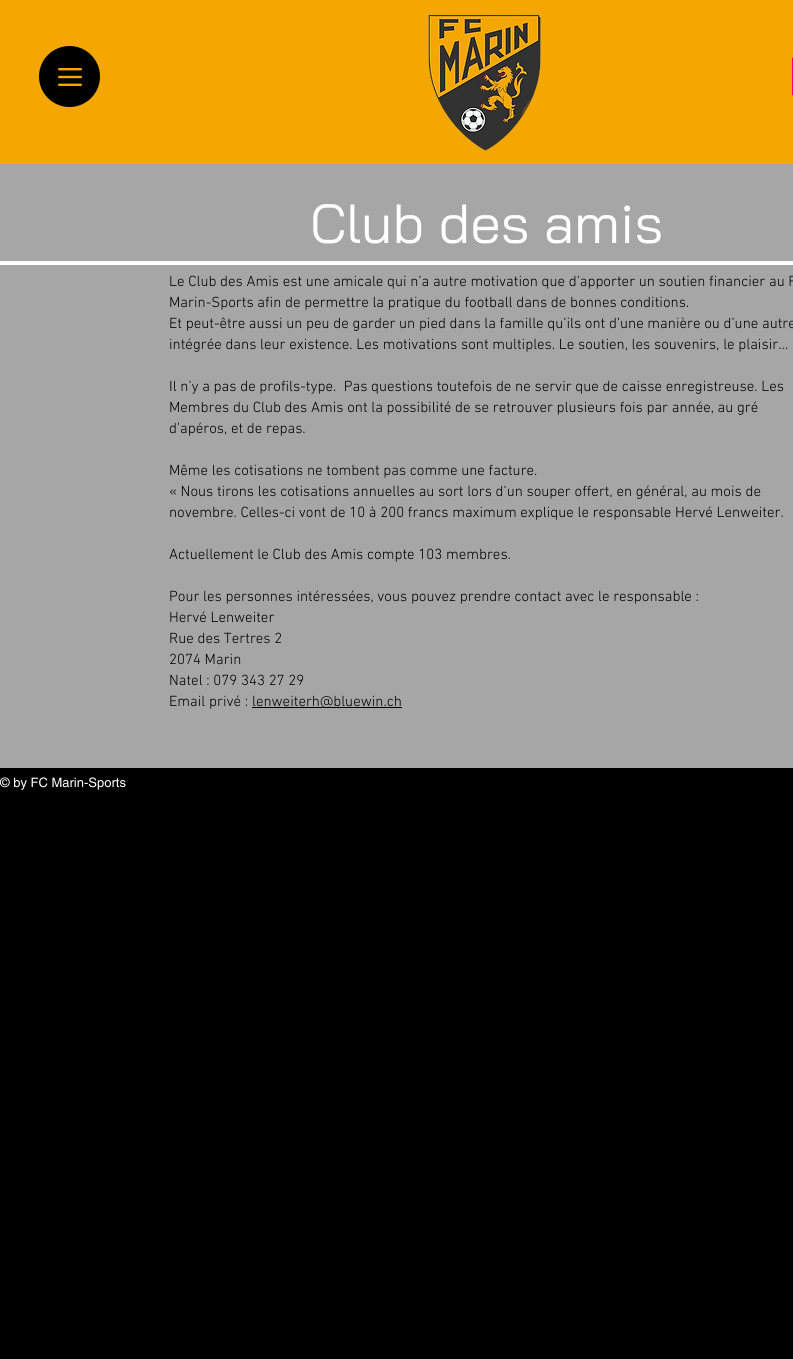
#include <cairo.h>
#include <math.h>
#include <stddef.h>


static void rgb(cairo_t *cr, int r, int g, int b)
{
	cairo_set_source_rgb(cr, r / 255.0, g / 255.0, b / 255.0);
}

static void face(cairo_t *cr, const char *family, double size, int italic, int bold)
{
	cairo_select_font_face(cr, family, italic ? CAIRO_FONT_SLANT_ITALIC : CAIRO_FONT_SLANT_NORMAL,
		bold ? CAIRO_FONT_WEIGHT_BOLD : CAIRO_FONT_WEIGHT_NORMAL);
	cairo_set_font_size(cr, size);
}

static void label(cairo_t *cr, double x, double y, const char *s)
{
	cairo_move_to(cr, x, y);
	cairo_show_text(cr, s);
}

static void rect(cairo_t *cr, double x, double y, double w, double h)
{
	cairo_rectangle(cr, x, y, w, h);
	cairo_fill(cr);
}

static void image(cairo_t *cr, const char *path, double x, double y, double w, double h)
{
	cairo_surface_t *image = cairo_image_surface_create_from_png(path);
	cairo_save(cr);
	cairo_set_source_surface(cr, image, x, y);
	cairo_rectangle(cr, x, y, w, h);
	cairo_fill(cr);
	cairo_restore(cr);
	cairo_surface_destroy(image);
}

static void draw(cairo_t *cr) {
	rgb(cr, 0, 0, 0);
	cairo_paint(cr);
	rgb(cr, 244, 167, 1);
	rect(cr, 0, 0, 793, 164);
	rgb(cr, 0, 0, 0);
	cairo_arc(cr, 69.5, 76.5, 30.5, 0, 2 * M_PI);
	cairo_fill(cr);
	image(cr, "image0.png", 58, 68, 24, 18);
	image(cr, "image1.png", 428, 14, 113, 137);
	image(cr, "image2.png", 792, 57, 1, 39);
	rgb(cr, 166, 166, 166);
	rect(cr, 0, 164, 793, 604);
	face(cr, "Bai Jamjuree", 55, 0, 0);
	rgb(cr, 255, 255, 255);
	label(cr, 310, 243, "Club des amis");
	rect(cr, 0, 261, 793, 4);
	face(cr, "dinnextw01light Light", 15, 0, 0);
	rgb(cr, 0, 0, 0);
	label(cr, 169, 286, "Le Club des Amis est une amicale qui n’a autre motivation que d’apporter un soutien financier au F");
	label(cr, 169, 307, "Marin-Sports afin de permettre la pratique du football dans de bonnes conditions.");
	label(cr, 169, 328, "Et peut-être aussi un peu de garder un pied dans la famille qu’ils ont d’une manière ou d’une autre");
	label(cr, 169, 349, "intégrée dans leur existence. Les motivations sont multiples. Le soutien, les souvenirs, le plaisir…");
	label(cr, 169, 391, "Il n’y a pas de profils-type.  Pas questions toutefois de ne servir que de caisse enregistreuse. Les");
	label(cr, 169, 412, "Membres du Club des Amis ont la possibilité de se retrouver plusieurs fois par année, au gré");
	label(cr, 169, 433, "d’apéros, et de repas.");
	label(cr, 169, 475, "Même les cotisations ne tombent pas comme une facture.");
	label(cr, 169, 496, "« Nous tirons les cotisations annuelles au sort lors d’un souper offert, en général, au mois de");
	label(cr, 169, 517, "novembre. Celles-ci vont de 10 à 200 francs maximum explique le responsable Hervé Lenweiter.");
	label(cr, 169, 559, "Actuellement le Club des Amis compte 103 membres.");
	label(cr, 169, 601, "Pour les personnes intéressées, vous pouvez prendre contact avec le responsable :");
	label(cr, 169, 622, "Hervé Lenweiter");
	label(cr, 169, 643, "Rue des Tertres 2");
	label(cr, 169, 664, "2074 Marin");
	label(cr, 169, 685, "Natel : 079 343 27 29");
	label(cr, 169, 706, "Email privé :");
	rect(cr, 252, 707, 150, 1);
	label(cr, 252, 706, "lenweiterh@bluewin.ch");
	face(cr, "helvetica", 13, 0, 0);
	rgb(cr, 255, 255, 255);
	label(cr, 0, 787, "© by FC Marin-Sports");
}

int main(void) {
	cairo_surface_t *surface = cairo_image_surface_create(CAIRO_FORMAT_RGB24, 793, 1359);
	cairo_t *cr = cairo_create(surface);
	cairo_font_options_t *options = cairo_font_options_create();
	cairo_font_options_set_hint_metrics(options, CAIRO_HINT_METRICS_OFF);
	cairo_font_options_set_hint_style(options, CAIRO_HINT_STYLE_NONE);
	cairo_set_font_options(cr, options);
	cairo_set_miter_limit(cr, 4);
	draw(cr);
	cairo_surface_write_to_png(surface, "render.png");
	cairo_font_options_destroy(options);
	cairo_destroy(cr);
	cairo_surface_destroy(surface);
	return 0;
}
